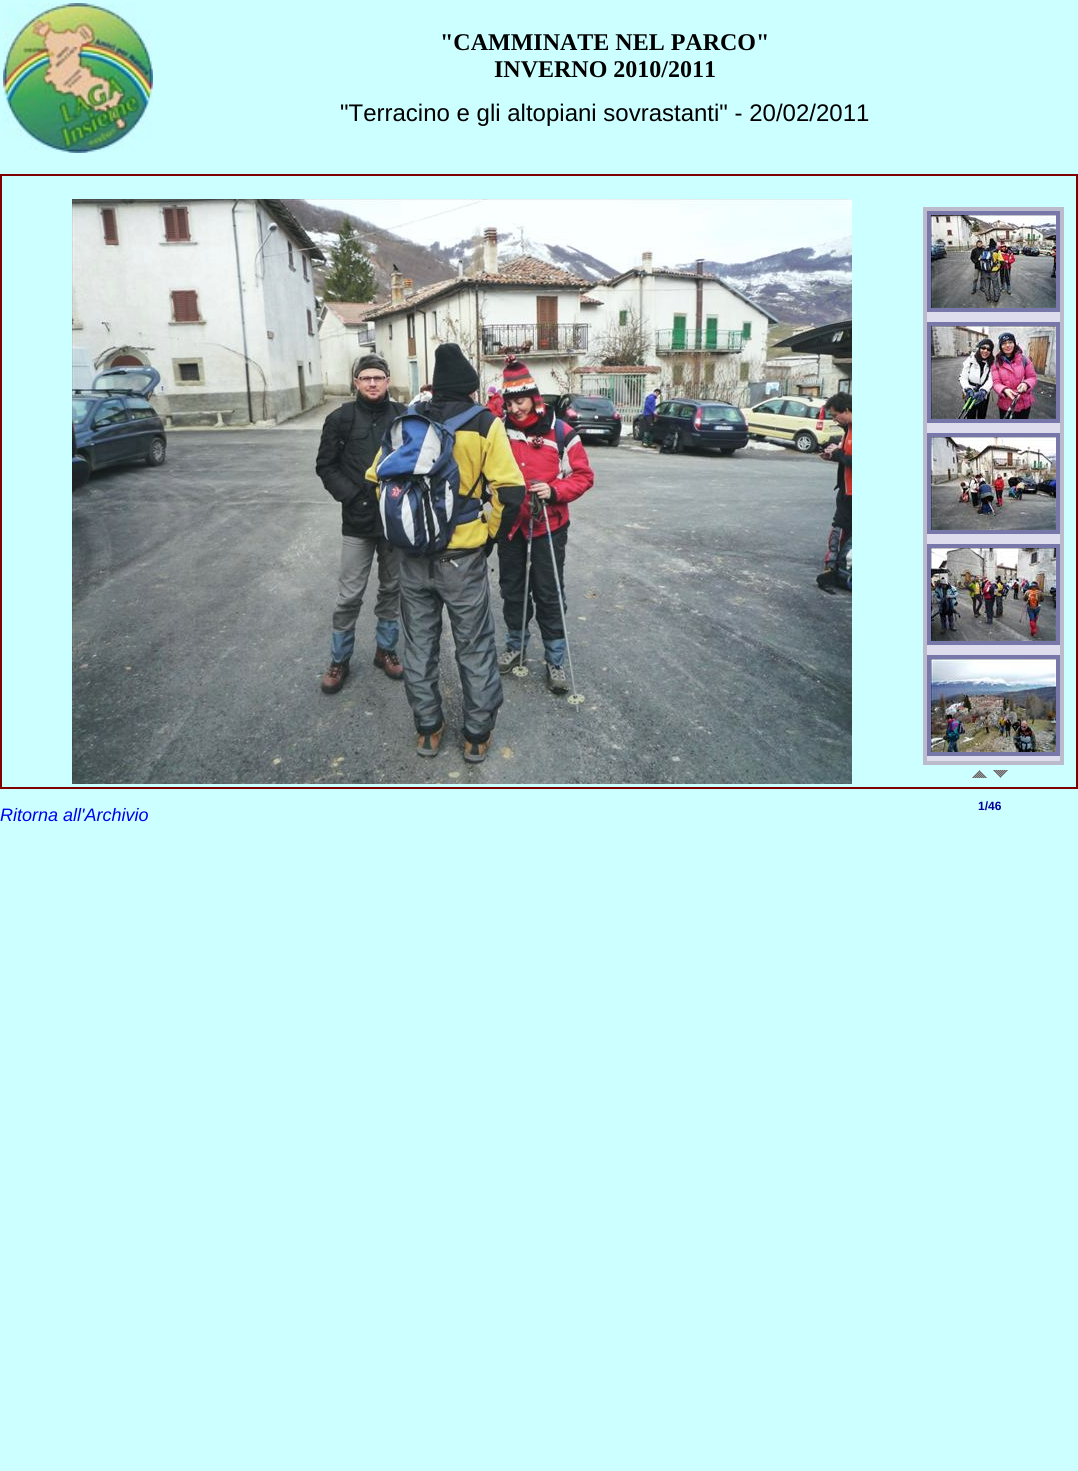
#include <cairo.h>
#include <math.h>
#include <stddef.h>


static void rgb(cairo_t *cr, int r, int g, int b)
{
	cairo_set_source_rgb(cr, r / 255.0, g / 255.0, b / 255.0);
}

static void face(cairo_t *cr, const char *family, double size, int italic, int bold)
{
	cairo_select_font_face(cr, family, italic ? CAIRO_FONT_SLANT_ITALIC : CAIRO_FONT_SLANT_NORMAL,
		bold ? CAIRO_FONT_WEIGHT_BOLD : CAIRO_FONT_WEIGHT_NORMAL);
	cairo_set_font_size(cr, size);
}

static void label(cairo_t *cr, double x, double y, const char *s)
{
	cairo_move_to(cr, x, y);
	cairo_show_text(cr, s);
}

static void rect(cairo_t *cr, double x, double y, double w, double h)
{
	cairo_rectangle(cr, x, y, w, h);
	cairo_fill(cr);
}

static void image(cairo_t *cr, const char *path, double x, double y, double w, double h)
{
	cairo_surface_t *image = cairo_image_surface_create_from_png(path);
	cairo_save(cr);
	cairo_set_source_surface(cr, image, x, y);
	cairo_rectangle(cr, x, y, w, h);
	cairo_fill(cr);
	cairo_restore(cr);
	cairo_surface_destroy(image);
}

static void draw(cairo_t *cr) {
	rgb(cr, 204, 255, 255);
	cairo_paint(cr);
	image(cr, "image0.png", 3, 3, 150, 150);
	face(cr, "Liberation Serif", 24, 0, 1);
	rgb(cr, 0, 0, 0);
	label(cr, 440, 50, "\"CAMMINATE NEL PARCO\"");
	label(cr, 494, 77, "INVERNO 2010/2011");
	face(cr, "Liberation Sans", 24, 0, 0);
	label(cr, 340, 121, "\"Terracino e gli altopiani sovrastanti\" - 20/02/2011");
	cairo_rectangle(cr, 1, 175, 1076, 613);
	rgb(cr, 128, 0, 0);
	cairo_stroke(cr);
	image(cr, "image1.png", 72, 199, 780, 585);
	rgb(cr, 221, 221, 238);
	rect(cr, 927, 312, 133, 449);
	cairo_rectangle(cr, 925, 209, 137, 554);
	rgb(cr, 187, 187, 204);
	cairo_set_line_width(cr, 4);
	cairo_stroke(cr);
	cairo_rectangle(cr, 929, 213, 129, 97);
	rgb(cr, 119, 119, 170);
	cairo_stroke(cr);
	image(cr, "image2.png", 931, 215, 125, 93);
	cairo_rectangle(cr, 929, 324, 129, 97);
	cairo_stroke(cr);
	image(cr, "image3.png", 931, 326, 125, 93);
	cairo_rectangle(cr, 929, 435, 129, 97);
	cairo_stroke(cr);
	image(cr, "image4.png", 931, 437, 125, 93);
	cairo_rectangle(cr, 929, 546, 129, 97);
	cairo_stroke(cr);
	image(cr, "image5.png", 931, 548, 125, 93);
	cairo_rectangle(cr, 929, 657, 129, 97);
	cairo_stroke(cr);
	image(cr, "image6.png", 931, 659, 125, 93);
	image(cr, "image7.png", 972, 770, 15, 8);
	image(cr, "image8.png", 993, 770, 15, 8);
	face(cr, "Liberation Sans", 12, 0, 1);
	rgb(cr, 0, 0, 153);
	label(cr, 978, 810, "1/46");
	face(cr, "Liberation Sans", 18, 1, 0);
	rgb(cr, 0, 0, 238);
	label(cr, 0, 821, "Ritorna all'Archivio");
}

int main(void) {
	cairo_surface_t *surface = cairo_image_surface_create(CAIRO_FORMAT_RGB24, 1078, 1471);
	cairo_t *cr = cairo_create(surface);
	cairo_font_options_t *options = cairo_font_options_create();
	cairo_font_options_set_hint_metrics(options, CAIRO_HINT_METRICS_OFF);
	cairo_font_options_set_hint_style(options, CAIRO_HINT_STYLE_NONE);
	cairo_set_font_options(cr, options);
	cairo_set_miter_limit(cr, 4);
	draw(cr);
	cairo_surface_write_to_png(surface, "render.png");
	cairo_font_options_destroy(options);
	cairo_destroy(cr);
	cairo_surface_destroy(surface);
	return 0;
}
